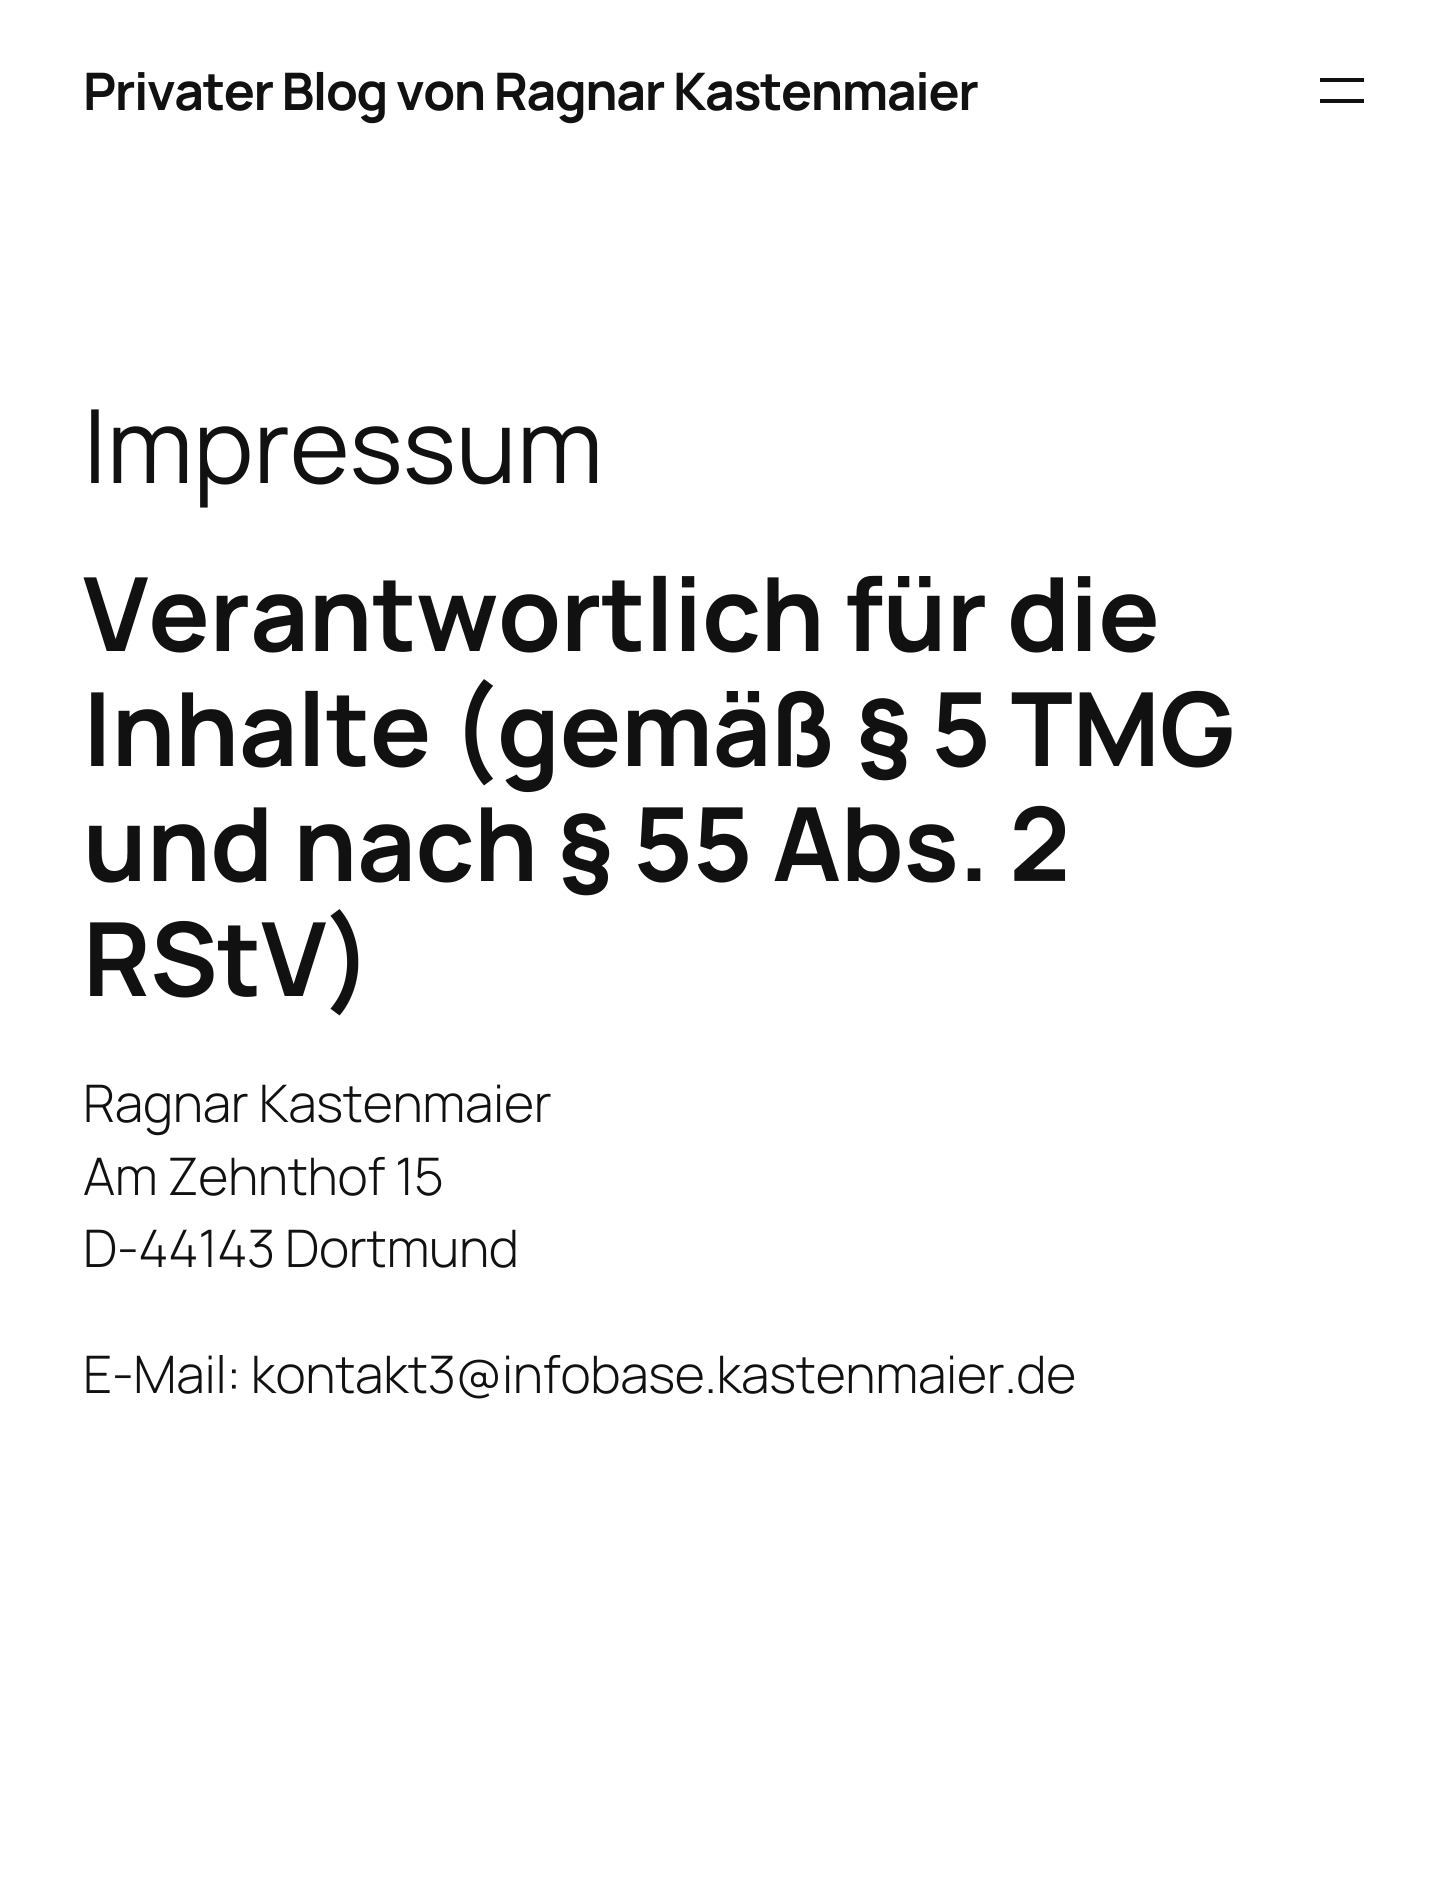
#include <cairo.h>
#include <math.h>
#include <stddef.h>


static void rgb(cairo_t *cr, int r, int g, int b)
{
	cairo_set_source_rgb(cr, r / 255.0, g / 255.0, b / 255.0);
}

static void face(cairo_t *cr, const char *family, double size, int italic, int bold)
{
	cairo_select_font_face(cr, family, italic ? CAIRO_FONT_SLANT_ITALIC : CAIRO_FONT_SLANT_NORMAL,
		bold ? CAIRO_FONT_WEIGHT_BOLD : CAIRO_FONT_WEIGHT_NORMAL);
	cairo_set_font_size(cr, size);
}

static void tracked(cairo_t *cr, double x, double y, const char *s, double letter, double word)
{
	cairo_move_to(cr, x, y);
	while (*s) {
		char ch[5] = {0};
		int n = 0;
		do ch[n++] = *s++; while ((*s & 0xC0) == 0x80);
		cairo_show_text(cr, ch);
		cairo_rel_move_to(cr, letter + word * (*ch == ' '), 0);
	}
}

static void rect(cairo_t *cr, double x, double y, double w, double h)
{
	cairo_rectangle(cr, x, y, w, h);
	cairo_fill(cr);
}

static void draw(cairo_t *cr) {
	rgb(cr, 255, 255, 255);
	cairo_paint(cr);
	face(cr, "Manrope", 51.75, 0, 1);
	rgb(cr, 17, 17, 17);
	tracked(cr, 83, 110, "Privater Blog von Ragnar Kastenmaier", -1.4, 0);
	rect(cr, 1320, 78, 44, 4);
	rect(cr, 1320, 99, 44, 4);
	face(cr, "Manrope", 102.25, 0, 0);
	tracked(cr, 83, 483, "Impressum", -0.3, 0);
	face(cr, "Manrope", 102.25, 0, 1);
	tracked(cr, 83, 651, "Verantwortlich für die", -0.3, 0);
	tracked(cr, 83, 766, "Inhalte (gemäß § 5 TMG", -0.3, 0);
	tracked(cr, 83, 881, "und nach § 55 Abs. 2", -0.3, 0);
	tracked(cr, 83, 996, "RStV)", -0.3, 0);
	face(cr, "Manrope Light", 51.75, 0, 0);
	tracked(cr, 83, 1122, "Ragnar Kastenmaier", -0.3, 0);
	tracked(cr, 83, 1195, "Am Zehnthof 15", -0.3, 0);
	tracked(cr, 83, 1267, "D-44143 Dortmund", -0.3, 0);
	tracked(cr, 83, 1393, "E-Mail: kontakt3@infobase.kastenmaier.de", -0.3, 0);
}

int main(void) {
	cairo_surface_t *surface = cairo_image_surface_create(CAIRO_FORMAT_RGB24, 1456, 1882);
	cairo_t *cr = cairo_create(surface);
	cairo_font_options_t *options = cairo_font_options_create();
	cairo_font_options_set_hint_metrics(options, CAIRO_HINT_METRICS_OFF);
	cairo_font_options_set_hint_style(options, CAIRO_HINT_STYLE_NONE);
	cairo_set_font_options(cr, options);
	cairo_set_miter_limit(cr, 4);
	draw(cr);
	cairo_surface_write_to_png(surface, "render.png");
	cairo_font_options_destroy(options);
	cairo_destroy(cr);
	cairo_surface_destroy(surface);
	return 0;
}
